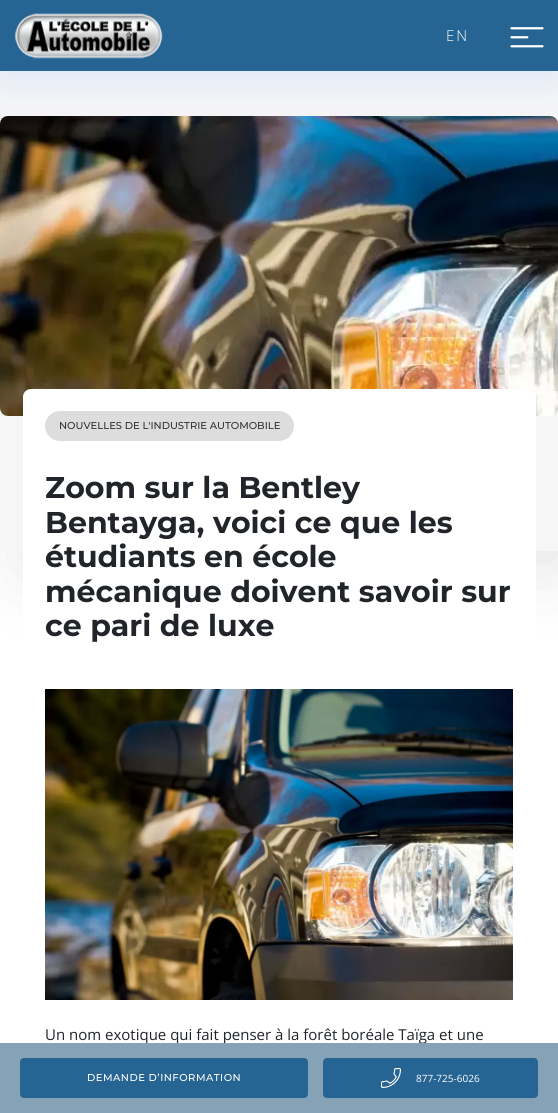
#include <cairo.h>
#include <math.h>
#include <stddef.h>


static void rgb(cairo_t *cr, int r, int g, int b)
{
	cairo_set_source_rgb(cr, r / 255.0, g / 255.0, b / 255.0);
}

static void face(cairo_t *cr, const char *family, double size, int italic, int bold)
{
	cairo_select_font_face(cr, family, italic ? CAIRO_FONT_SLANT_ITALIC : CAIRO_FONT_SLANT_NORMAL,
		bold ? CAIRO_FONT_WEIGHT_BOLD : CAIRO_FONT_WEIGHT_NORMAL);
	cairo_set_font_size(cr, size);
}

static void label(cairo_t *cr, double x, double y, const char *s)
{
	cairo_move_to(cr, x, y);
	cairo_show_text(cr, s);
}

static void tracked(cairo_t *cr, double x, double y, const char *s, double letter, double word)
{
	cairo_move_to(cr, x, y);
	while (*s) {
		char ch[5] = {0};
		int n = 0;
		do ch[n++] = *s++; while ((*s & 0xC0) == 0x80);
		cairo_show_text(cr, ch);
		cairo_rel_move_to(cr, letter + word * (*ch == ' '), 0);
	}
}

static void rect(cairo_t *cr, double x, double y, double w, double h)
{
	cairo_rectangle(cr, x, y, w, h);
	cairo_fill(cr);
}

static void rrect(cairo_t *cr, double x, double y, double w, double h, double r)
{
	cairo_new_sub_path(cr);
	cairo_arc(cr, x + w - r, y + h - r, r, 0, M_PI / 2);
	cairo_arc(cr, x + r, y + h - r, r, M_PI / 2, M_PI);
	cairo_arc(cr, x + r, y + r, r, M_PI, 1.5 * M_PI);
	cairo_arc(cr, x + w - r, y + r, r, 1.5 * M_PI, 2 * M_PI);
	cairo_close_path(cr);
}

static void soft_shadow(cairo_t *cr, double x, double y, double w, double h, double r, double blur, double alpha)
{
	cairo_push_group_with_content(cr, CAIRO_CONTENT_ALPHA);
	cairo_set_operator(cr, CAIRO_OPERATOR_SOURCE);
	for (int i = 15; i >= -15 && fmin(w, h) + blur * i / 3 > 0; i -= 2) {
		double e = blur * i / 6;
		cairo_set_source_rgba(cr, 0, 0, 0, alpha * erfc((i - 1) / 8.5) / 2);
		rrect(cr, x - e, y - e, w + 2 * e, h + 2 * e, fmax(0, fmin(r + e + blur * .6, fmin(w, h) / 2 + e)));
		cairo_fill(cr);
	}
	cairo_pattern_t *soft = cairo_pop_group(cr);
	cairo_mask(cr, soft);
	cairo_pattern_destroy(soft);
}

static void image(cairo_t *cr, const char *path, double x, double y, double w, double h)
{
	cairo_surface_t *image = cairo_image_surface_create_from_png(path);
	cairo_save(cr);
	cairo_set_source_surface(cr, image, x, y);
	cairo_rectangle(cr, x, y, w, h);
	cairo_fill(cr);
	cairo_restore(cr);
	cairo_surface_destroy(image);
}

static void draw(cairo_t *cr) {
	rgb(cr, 255, 255, 255);
	cairo_paint(cr);
	rgb(cr, 0, 0, 0);
	soft_shadow(cr, 23, 391, 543, 180, 0, 37.5, 0.1);
	rgb(cr, 246, 246, 246);
	rect(cr, 0, 71, 558, 480);
	image(cr, "image2.png", 0, 116, 558, 300);
	rgb(cr, 103, 151, 255);
	soft_shadow(cr, 0, 12, 558, 71, 0, 32, 0.1);
	soft_shadow(cr, 0, 4, 558, 71, 0, 12, 0.1);
	rgb(cr, 38, 100, 147);
	rect(cr, 0, 0, 558, 71);
	image(cr, "image0.png", 15, 13, 148, 46);
	face(cr, "Open Sans Light", 15, 0, 0);
	rgb(cr, 255, 255, 255);
	tracked(cr, 446, 41, "EN", 2, 0);
	image(cr, "image1.png", 510, 27, 34, 21);
	cairo_new_path(cr);
	cairo_move_to(cr, 31, 389);
	cairo_line_to(cr, 528, 389);
	cairo_curve_to(cr, 532.5, 389, 536, 392.5, 536, 397);
	cairo_line_to(cr, 536, 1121);
	cairo_line_to(cr, 23, 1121);
	cairo_line_to(cr, 23, 397);
	cairo_curve_to(cr, 23, 392.5, 26.5, 389, 31, 389);
	cairo_close_path(cr);
	cairo_fill(cr);
	rgb(cr, 221, 221, 221);
	rrect(cr, 45, 411, 249, 30, 15);
	cairo_fill(cr);
	face(cr, "Montserrat Medium", 10, 0, 0);
	rgb(cr, 50, 50, 50);
	label(cr, 59, 429, "NOUVELLES DE L'INDUSTRIE AUTOMOBILE");
	face(cr, "Montserrat", 30, 0, 1);
	rgb(cr, 33, 37, 41);
	label(cr, 45, 498, "Zoom sur la Bentley");
	label(cr, 45, 533, "Bentayga, voici ce que les");
	label(cr, 45, 567, "étudiants en école");
	label(cr, 45, 602, "mécanique doivent savoir sur");
	label(cr, 45, 636, "ce pari de luxe");
	image(cr, "image3.png", 45, 689, 468, 311);
	face(cr, "Open Sans", 15, 0, 0);
	label(cr, 45, 1040, "Un nom exotique qui fait penser à la forêt boréale Taïga et une");
	rgb(cr, 134, 162, 183);
	rect(cr, 0, 1043, 558, 70);
	rgb(cr, 38, 100, 147);
	rrect(cr, 20, 1058, 288, 40, 4);
	cairo_fill(cr);
	face(cr, "Montserrat Medium", 10, 0, 0);
	rgb(cr, 255, 255, 255);
	tracked(cr, 87, 1081, "DEMANDE D’INFORMATION", 0.5, 0);
	rgb(cr, 38, 100, 147);
	rrect(cr, 323, 1058, 215, 40, 4);
	cairo_fill(cr);
	image(cr, "image4.png", 381, 1068, 20, 20);
	face(cr, "Open Sans", 10, 0, 0);
	rgb(cr, 255, 255, 255);
	label(cr, 416, 1082, "877-725-6026");
}

int main(void) {
	cairo_surface_t *surface = cairo_image_surface_create(CAIRO_FORMAT_RGB24, 558, 1113);
	cairo_t *cr = cairo_create(surface);
	cairo_font_options_t *options = cairo_font_options_create();
	cairo_font_options_set_hint_metrics(options, CAIRO_HINT_METRICS_OFF);
	cairo_font_options_set_hint_style(options, CAIRO_HINT_STYLE_NONE);
	cairo_set_font_options(cr, options);
	cairo_set_miter_limit(cr, 4);
	draw(cr);
	cairo_surface_write_to_png(surface, "render.png");
	cairo_font_options_destroy(options);
	cairo_destroy(cr);
	cairo_surface_destroy(surface);
	return 0;
}
